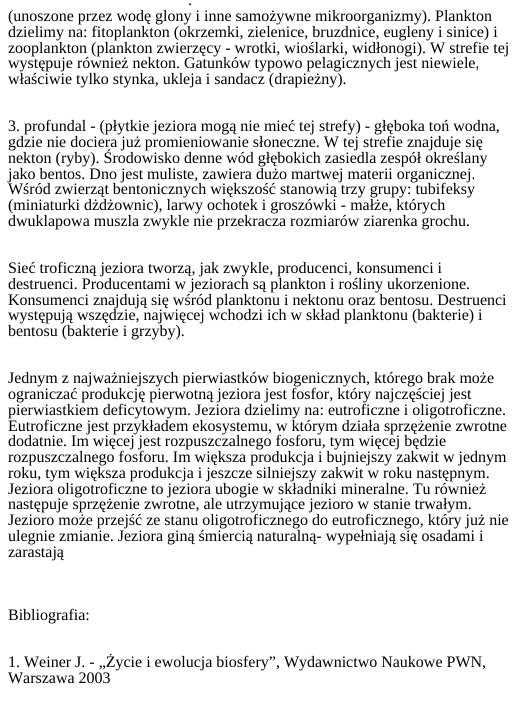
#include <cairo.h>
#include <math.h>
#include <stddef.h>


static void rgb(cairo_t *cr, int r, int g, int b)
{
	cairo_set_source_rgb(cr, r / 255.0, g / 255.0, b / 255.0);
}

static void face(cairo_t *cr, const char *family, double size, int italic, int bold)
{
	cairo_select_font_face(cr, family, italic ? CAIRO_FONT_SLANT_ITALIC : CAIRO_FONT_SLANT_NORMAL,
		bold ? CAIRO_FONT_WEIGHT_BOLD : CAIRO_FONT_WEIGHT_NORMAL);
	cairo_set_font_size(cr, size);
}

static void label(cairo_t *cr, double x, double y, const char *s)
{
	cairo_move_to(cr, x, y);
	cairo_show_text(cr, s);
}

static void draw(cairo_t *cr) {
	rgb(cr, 255, 255, 255);
	cairo_paint(cr);
	face(cr, "Liberation Serif", 16, 0, 0);
	rgb(cr, 0, 0, 0);
	label(cr, 188, 5, ".");
	label(cr, 8, 21, "(unoszone przez wodę glony i inne samożywne mikroorganizmy). Plankton");
	label(cr, 8, 37, "dzielimy na: fitoplankton (okrzemki, zielenice, bruzdnice, eugleny i sinice) i");
	label(cr, 8, 53, "zooplankton (plankton zwierzęcy - wrotki, wioślarki, widłonogi). W strefie tej");
	label(cr, 8, 68, "występuje również nekton. Gatunków typowo pelagicznych jest niewiele,");
	label(cr, 8, 84, "właściwie tylko stynka, ukleja i sandacz (drapieżny).");
	label(cr, 8, 131, "3. profundal - (płytkie jeziora mogą nie mieć tej strefy) - głęboka toń wodna,");
	label(cr, 8, 147, "gdzie nie dociera już promieniowanie słoneczne. W tej strefie znajduje się");
	label(cr, 8, 163, "nekton (ryby). Środowisko denne wód głębokich zasiedla zespół określany");
	label(cr, 8, 179, "jako bentos. Dno jest muliste, zawiera dużo martwej materii organicznej.");
	label(cr, 8, 194, "Wśród zwierząt bentonicznych większość stanowią trzy grupy: tubifeksy");
	label(cr, 8, 210, "(miniaturki dżdżownic), larwy ochotek i groszówki - małże, których");
	label(cr, 8, 226, "dwuklapowa muszla zwykle nie przekracza rozmiarów ziarenka grochu.");
	label(cr, 8, 273, "Sieć troficzną jeziora tworzą, jak zwykle, producenci, konsumenci i");
	label(cr, 8, 289, "destruenci. Producentami w jeziorach są plankton i rośliny ukorzenione.");
	label(cr, 8, 305, "Konsumenci znajdują się wśród planktonu i nektonu oraz bentosu. Destruenci");
	label(cr, 8, 320, "występują wszędzie, najwięcej wchodzi ich w skład planktonu (bakterie) i");
	label(cr, 8, 336, "bentosu (bakterie i grzyby).");
	label(cr, 8, 383, "Jednym z najważniejszych pierwiastków biogenicznych, którego brak może");
	label(cr, 8, 399, "ograniczać produkcję pierwotną jeziora jest fosfor, który najczęściej jest");
	label(cr, 8, 415, "pierwiastkiem deficytowym. Jeziora dzielimy na: eutroficzne i oligotroficzne.");
	label(cr, 8, 431, "Eutroficzne jest przykładem ekosystemu, w którym działa sprzężenie zwrotne");
	label(cr, 8, 446, "dodatnie. Im więcej jest rozpuszczalnego fosforu, tym więcej będzie");
	label(cr, 8, 462, "rozpuszczalnego fosforu. Im większa produkcja i bujniejszy zakwit w jednym");
	label(cr, 8, 478, "roku, tym większa produkcja i jeszcze silniejszy zakwit w roku następnym.");
	label(cr, 8, 494, "Jeziora oligotroficzne to jeziora ubogie w składniki mineralne. Tu również");
	label(cr, 8, 509, "następuje sprzężenie zwrotne, ale utrzymujące jezioro w stanie trwałym.");
	label(cr, 8, 525, "Jezioro może przejść ze stanu oligotroficznego do eutroficznego, który już nie");
	label(cr, 8, 541, "ulegnie zmianie. Jeziora giną śmiercią naturalną- wypełniają się osadami i");
	label(cr, 8, 557, "zarastają");
	label(cr, 8, 620, "Bibliografia:");
	label(cr, 8, 667, "1. Weiner J. - „Życie i ewolucja biosfery”, Wydawnictwo Naukowe PWN,");
	label(cr, 8, 683, "Warszawa 2003");
}

int main(void) {
	cairo_surface_t *surface = cairo_image_surface_create(CAIRO_FORMAT_RGB24, 518, 707);
	cairo_t *cr = cairo_create(surface);
	cairo_font_options_t *options = cairo_font_options_create();
	cairo_font_options_set_hint_metrics(options, CAIRO_HINT_METRICS_OFF);
	cairo_font_options_set_hint_style(options, CAIRO_HINT_STYLE_NONE);
	cairo_set_font_options(cr, options);
	cairo_set_miter_limit(cr, 4);
	draw(cr);
	cairo_surface_write_to_png(surface, "render.png");
	cairo_font_options_destroy(options);
	cairo_destroy(cr);
	cairo_surface_destroy(surface);
	return 0;
}
